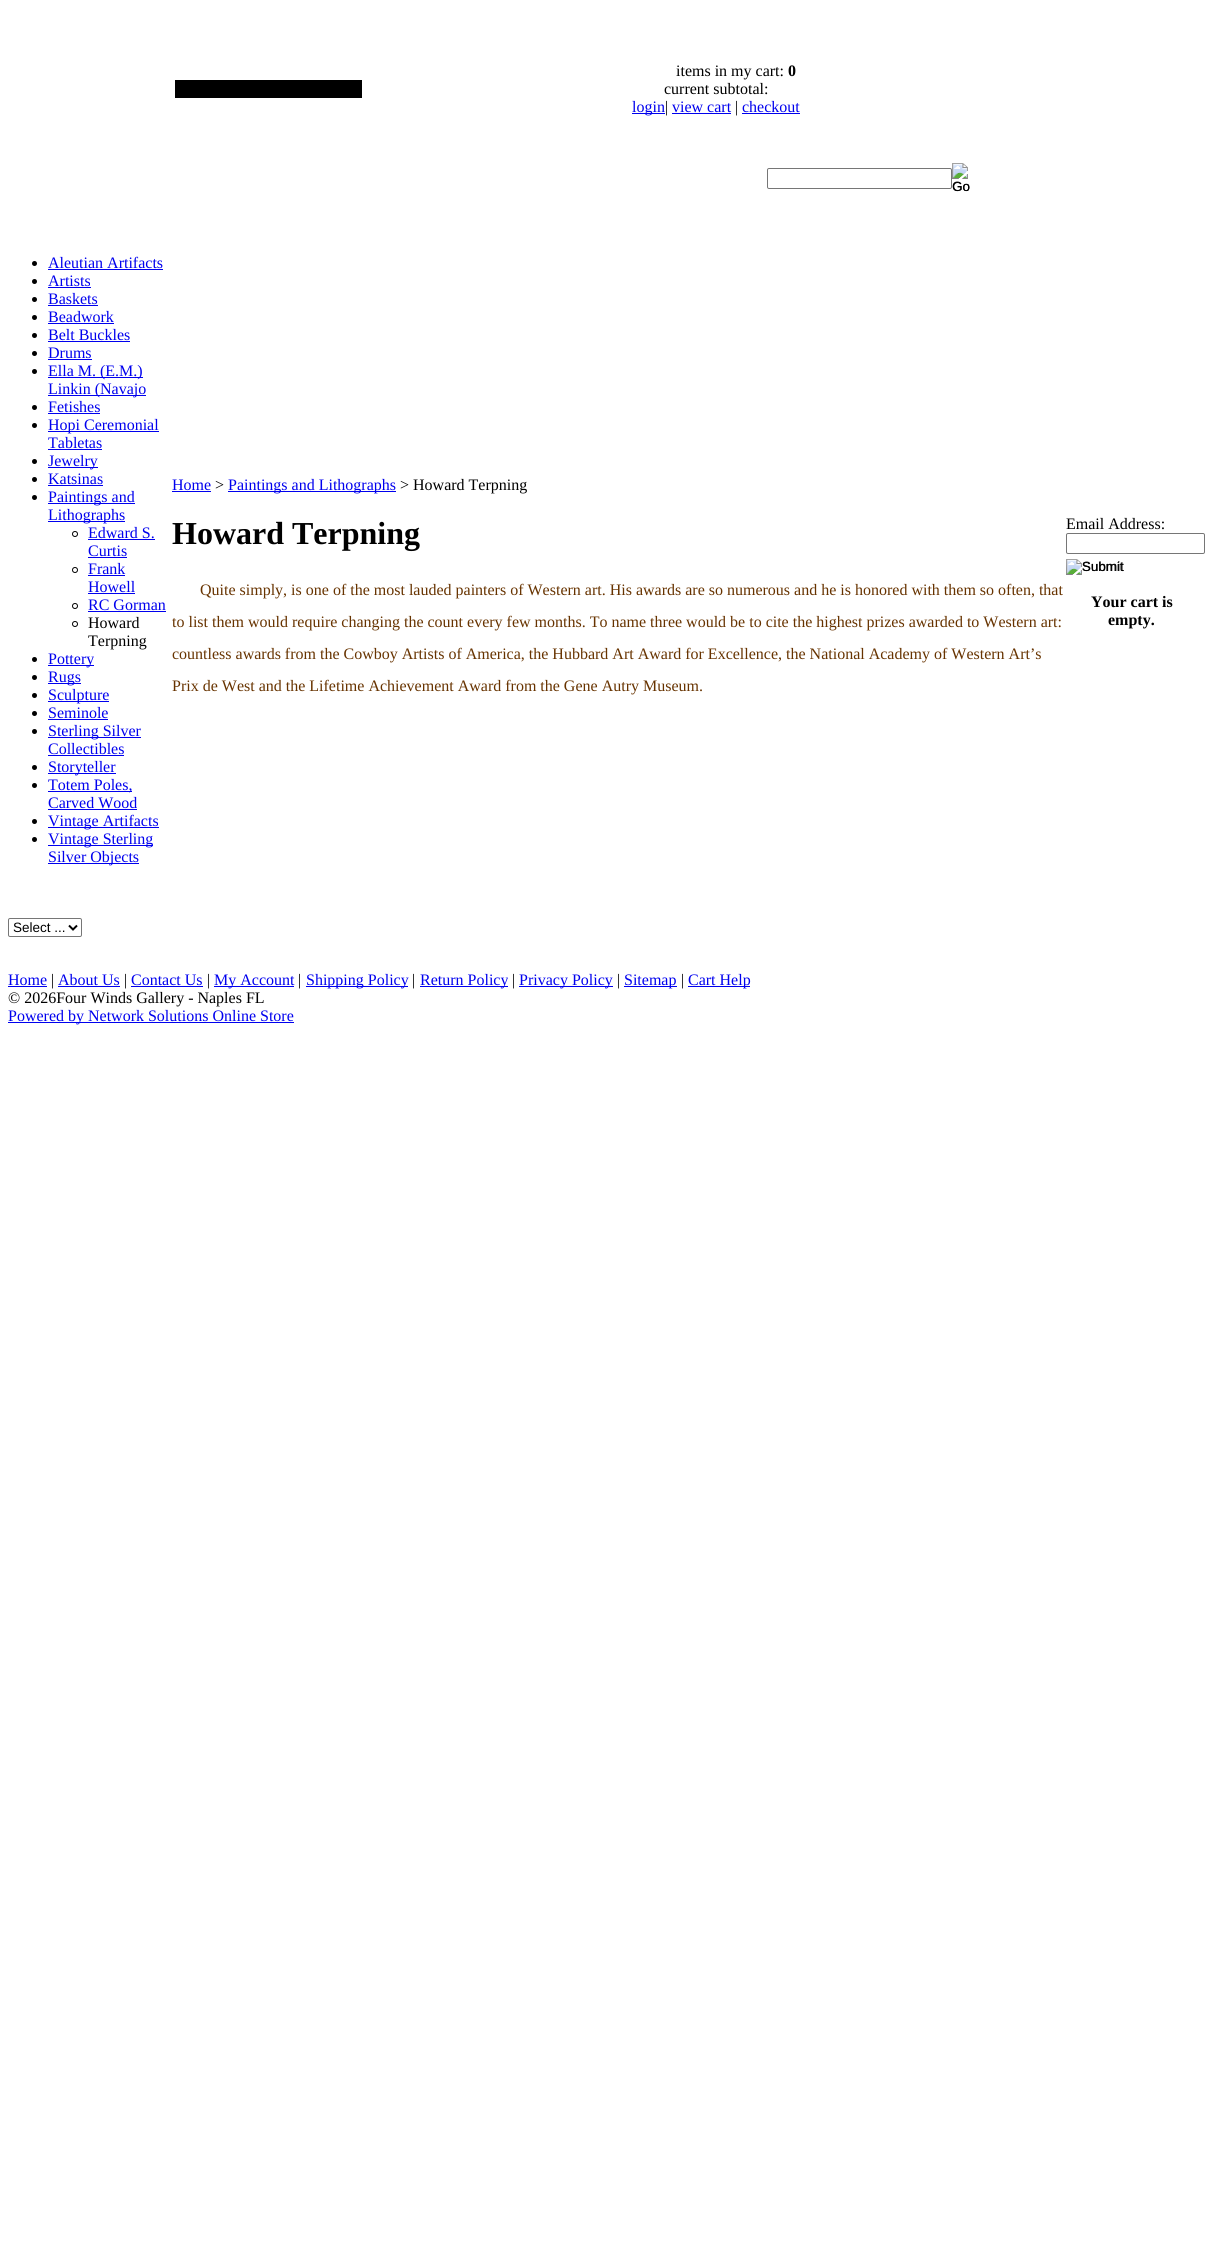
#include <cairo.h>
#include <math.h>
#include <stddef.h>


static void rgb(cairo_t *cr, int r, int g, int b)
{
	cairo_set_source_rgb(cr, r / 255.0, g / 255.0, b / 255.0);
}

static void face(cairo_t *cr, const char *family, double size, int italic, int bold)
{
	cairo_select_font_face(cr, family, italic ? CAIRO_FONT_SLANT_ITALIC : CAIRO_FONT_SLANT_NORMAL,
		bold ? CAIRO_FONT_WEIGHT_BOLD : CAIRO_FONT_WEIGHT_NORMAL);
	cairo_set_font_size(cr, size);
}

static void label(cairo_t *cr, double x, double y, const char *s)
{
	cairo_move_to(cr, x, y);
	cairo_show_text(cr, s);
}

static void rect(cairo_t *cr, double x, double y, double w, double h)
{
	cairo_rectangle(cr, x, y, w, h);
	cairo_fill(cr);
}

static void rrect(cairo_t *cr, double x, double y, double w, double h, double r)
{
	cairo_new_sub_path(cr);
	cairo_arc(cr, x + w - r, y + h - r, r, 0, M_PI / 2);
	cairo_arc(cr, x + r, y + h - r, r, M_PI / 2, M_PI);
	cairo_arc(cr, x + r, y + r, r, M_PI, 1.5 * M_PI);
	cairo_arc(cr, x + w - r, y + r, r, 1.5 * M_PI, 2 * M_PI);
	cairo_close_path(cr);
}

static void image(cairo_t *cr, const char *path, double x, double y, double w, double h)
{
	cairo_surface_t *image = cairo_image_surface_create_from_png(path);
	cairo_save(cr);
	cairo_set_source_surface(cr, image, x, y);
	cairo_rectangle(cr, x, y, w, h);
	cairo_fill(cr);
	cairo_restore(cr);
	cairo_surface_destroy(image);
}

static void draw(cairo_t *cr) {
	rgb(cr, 255, 255, 255);
	cairo_paint(cr);
	rgb(cr, 0, 0, 0);
	rect(cr, 175, 80, 187, 18);
	face(cr, "Liberation Serif", 16, 0, 0);
	label(cr, 676, 76, "items in my cart:");
	face(cr, "Liberation Serif", 16, 0, 1);
	label(cr, 788, 76, "0");
	face(cr, "Liberation Serif", 16, 0, 0);
	label(cr, 664, 94, "current subtotal:");
	rgb(cr, 0, 0, 238);
	rect(cr, 632, 113, 33, 1);
	label(cr, 632, 112, "login");
	rgb(cr, 0, 0, 0);
	label(cr, 665, 112, "|");
	rgb(cr, 0, 0, 238);
	label(cr, 672, 112, "view cart");
	rect(cr, 672, 113, 59, 1);
	rgb(cr, 0, 0, 0);
	label(cr, 735, 112, "|");
	rgb(cr, 0, 0, 238);
	label(cr, 742, 112, "checkout");
	rect(cr, 742, 113, 58, 1);
	rrect(cr, 767.5, 168.5, 184, 20, 1.5);
	rgb(cr, 118, 118, 118);
	cairo_set_line_width(cr, 1);
	cairo_stroke(cr);
	image(cr, "image0.png", 952, 163, 18, 28);
	face(cr, "Liberation Sans", 13.5, 0, 0);
	rgb(cr, 0, 0, 0);
	label(cr, 952, 191, "Go");
	cairo_new_path(cr);
	cairo_arc(cr, 34.5, 263.5, 2.5, 0, 2 * M_PI);
	cairo_fill(cr);
	face(cr, "Liberation Serif", 16, 0, 0);
	rgb(cr, 0, 0, 238);
	label(cr, 48, 268, "Aleutian Artifacts");
	rect(cr, 48, 269, 115, 1);
	rgb(cr, 0, 0, 0);
	cairo_new_path(cr);
	cairo_arc(cr, 34.5, 281.5, 2.5, 0, 2 * M_PI);
	cairo_fill(cr);
	rgb(cr, 0, 0, 238);
	label(cr, 48, 286, "Artists");
	rect(cr, 48, 287, 43, 1);
	rgb(cr, 0, 0, 0);
	cairo_new_path(cr);
	cairo_arc(cr, 34.5, 299.5, 2.5, 0, 2 * M_PI);
	cairo_fill(cr);
	rgb(cr, 0, 0, 238);
	label(cr, 48, 304, "Baskets");
	rect(cr, 48, 305, 50, 1);
	rgb(cr, 0, 0, 0);
	cairo_new_path(cr);
	cairo_arc(cr, 34.5, 317.5, 2.5, 0, 2 * M_PI);
	cairo_fill(cr);
	rgb(cr, 0, 0, 238);
	label(cr, 48, 322, "Beadwork");
	rect(cr, 48, 323, 66, 1);
	rgb(cr, 0, 0, 0);
	cairo_new_path(cr);
	cairo_arc(cr, 34.5, 335.5, 2.5, 0, 2 * M_PI);
	cairo_fill(cr);
	rgb(cr, 0, 0, 238);
	label(cr, 48, 340, "Belt Buckles");
	rect(cr, 48, 341, 82, 1);
	rgb(cr, 0, 0, 0);
	cairo_new_path(cr);
	cairo_arc(cr, 34.5, 353.5, 2.5, 0, 2 * M_PI);
	cairo_fill(cr);
	rgb(cr, 0, 0, 238);
	label(cr, 48, 358, "Drums");
	rect(cr, 48, 359, 44, 1);
	rgb(cr, 0, 0, 0);
	cairo_new_path(cr);
	cairo_arc(cr, 34.5, 371.5, 2.5, 0, 2 * M_PI);
	cairo_fill(cr);
	rgb(cr, 0, 0, 238);
	rect(cr, 48, 377, 95, 1);
	label(cr, 48, 376, "Ella M. (E.M.)");
	rect(cr, 48, 395, 98, 1);
	label(cr, 48, 394, "Linkin (Navajo");
	rgb(cr, 0, 0, 0);
	cairo_new_path(cr);
	cairo_arc(cr, 34.5, 407.5, 2.5, 0, 2 * M_PI);
	cairo_fill(cr);
	rgb(cr, 0, 0, 238);
	label(cr, 48, 412, "Fetishes");
	rect(cr, 48, 413, 52, 1);
	rgb(cr, 0, 0, 0);
	cairo_new_path(cr);
	cairo_arc(cr, 34.5, 425.5, 2.5, 0, 2 * M_PI);
	cairo_fill(cr);
	rgb(cr, 0, 0, 238);
	rect(cr, 48, 431, 111, 1);
	label(cr, 48, 430, "Hopi Ceremonial");
	label(cr, 48, 448, "Tabletas");
	rect(cr, 48, 449, 54, 1);
	rgb(cr, 0, 0, 0);
	cairo_new_path(cr);
	cairo_arc(cr, 34.5, 461.5, 2.5, 0, 2 * M_PI);
	cairo_fill(cr);
	rgb(cr, 0, 0, 238);
	rect(cr, 48, 467, 50, 1);
	label(cr, 48, 466, "Jewelry");
	rgb(cr, 0, 0, 0);
	cairo_new_path(cr);
	cairo_arc(cr, 34.5, 479.5, 2.5, 0, 2 * M_PI);
	cairo_fill(cr);
	rgb(cr, 0, 0, 238);
	label(cr, 48, 484, "Katsinas");
	rect(cr, 48, 485, 55, 1);
	rgb(cr, 0, 0, 0);
	cairo_new_path(cr);
	cairo_arc(cr, 34.5, 497.5, 2.5, 0, 2 * M_PI);
	cairo_fill(cr);
	rgb(cr, 0, 0, 238);
	rect(cr, 48, 503, 87, 1);
	label(cr, 48, 502, "Paintings and");
	rect(cr, 48, 521, 77, 1);
	label(cr, 48, 520, "Lithographs");
	cairo_new_path(cr);
	cairo_arc(cr, 75, 534, 2.5, 0, 2 * M_PI);
	rgb(cr, 0, 0, 0);
	cairo_stroke(cr);
	rgb(cr, 0, 0, 238);
	label(cr, 88, 538, "Edward S.");
	rect(cr, 88, 539, 67, 1);
	label(cr, 88, 556, "Curtis");
	rect(cr, 88, 557, 39, 1);
	cairo_new_path(cr);
	cairo_arc(cr, 75, 570, 2.5, 0, 2 * M_PI);
	rgb(cr, 0, 0, 0);
	cairo_stroke(cr);
	rgb(cr, 0, 0, 238);
	label(cr, 88, 574, "Frank");
	rect(cr, 88, 575, 37, 1);
	label(cr, 88, 592, "Howell");
	rect(cr, 88, 593, 47, 1);
	cairo_new_path(cr);
	cairo_arc(cr, 75, 606, 2.5, 0, 2 * M_PI);
	rgb(cr, 0, 0, 0);
	cairo_stroke(cr);
	rgb(cr, 0, 0, 238);
	label(cr, 88, 610, "RC Gorman");
	rect(cr, 88, 611, 78, 1);
	cairo_new_path(cr);
	cairo_arc(cr, 75, 624, 2.5, 0, 2 * M_PI);
	rgb(cr, 0, 0, 0);
	cairo_stroke(cr);
	label(cr, 88, 628, "Howard");
	label(cr, 88, 646, "Terpning");
	cairo_new_path(cr);
	cairo_arc(cr, 34.5, 659.5, 2.5, 0, 2 * M_PI);
	cairo_fill(cr);
	rgb(cr, 0, 0, 238);
	rect(cr, 48, 665, 46, 1);
	label(cr, 48, 664, "Pottery");
	rgb(cr, 0, 0, 0);
	cairo_new_path(cr);
	cairo_arc(cr, 34.5, 677.5, 2.5, 0, 2 * M_PI);
	cairo_fill(cr);
	rgb(cr, 0, 0, 238);
	rect(cr, 48, 683, 33, 1);
	label(cr, 48, 682, "Rugs");
	rgb(cr, 0, 0, 0);
	cairo_new_path(cr);
	cairo_arc(cr, 34.5, 695.5, 2.5, 0, 2 * M_PI);
	cairo_fill(cr);
	rgb(cr, 0, 0, 238);
	rect(cr, 48, 701, 61, 1);
	label(cr, 48, 700, "Sculpture");
	rgb(cr, 0, 0, 0);
	cairo_new_path(cr);
	cairo_arc(cr, 34.5, 713.5, 2.5, 0, 2 * M_PI);
	cairo_fill(cr);
	rgb(cr, 0, 0, 238);
	label(cr, 48, 718, "Seminole");
	rect(cr, 48, 719, 60, 1);
	rgb(cr, 0, 0, 0);
	cairo_new_path(cr);
	cairo_arc(cr, 34.5, 731.5, 2.5, 0, 2 * M_PI);
	cairo_fill(cr);
	rgb(cr, 0, 0, 238);
	rect(cr, 48, 737, 93, 1);
	label(cr, 48, 736, "Sterling Silver");
	label(cr, 48, 754, "Collectibles");
	rect(cr, 48, 755, 76, 1);
	rgb(cr, 0, 0, 0);
	cairo_new_path(cr);
	cairo_arc(cr, 34.5, 767.5, 2.5, 0, 2 * M_PI);
	cairo_fill(cr);
	rgb(cr, 0, 0, 238);
	rect(cr, 48, 773, 68, 1);
	label(cr, 48, 772, "Storyteller");
	rgb(cr, 0, 0, 0);
	cairo_new_path(cr);
	cairo_arc(cr, 34.5, 785.5, 2.5, 0, 2 * M_PI);
	cairo_fill(cr);
	rgb(cr, 0, 0, 238);
	rect(cr, 48, 791, 84, 1);
	label(cr, 48, 790, "Totem Poles,");
	label(cr, 48, 808, "Carved Wood");
	rect(cr, 48, 809, 89, 1);
	rgb(cr, 0, 0, 0);
	cairo_new_path(cr);
	cairo_arc(cr, 34.5, 821.5, 2.5, 0, 2 * M_PI);
	cairo_fill(cr);
	rgb(cr, 0, 0, 238);
	rect(cr, 48, 827, 111, 1);
	label(cr, 48, 826, "Vintage Artifacts");
	rgb(cr, 0, 0, 0);
	cairo_new_path(cr);
	cairo_arc(cr, 34.5, 839.5, 2.5, 0, 2 * M_PI);
	cairo_fill(cr);
	rgb(cr, 0, 0, 238);
	rect(cr, 48, 845, 105, 1);
	label(cr, 48, 844, "Vintage Sterling");
	rect(cr, 48, 863, 91, 1);
	label(cr, 48, 862, "Silver Objects");
	rrect(cr, 8.5, 918.5, 73, 18, 1.5);
	rgb(cr, 118, 118, 118);
	cairo_stroke(cr);
	cairo_new_path(cr);
	cairo_move_to(cr, 69, 925.5);
	cairo_line_to(cr, 73, 929.5);
	cairo_line_to(cr, 77, 925.5);
	rgb(cr, 0, 0, 0);
	cairo_set_line_width(cr, 2);
	cairo_stroke(cr);
	face(cr, "Liberation Sans", 13.5, 0, 0);
	label(cr, 13, 932, "Select ...");
	face(cr, "Liberation Serif", 16, 0, 0);
	rgb(cr, 0, 0, 238);
	label(cr, 172, 490, "Home");
	rect(cr, 172, 491, 39, 1);
	rgb(cr, 0, 0, 0);
	label(cr, 215, 490, ">");
	rgb(cr, 0, 0, 238);
	rect(cr, 228, 491, 168, 1);
	label(cr, 228, 490, "Paintings and Lithographs");
	rgb(cr, 0, 0, 0);
	label(cr, 400, 490, "> Howard Terpning");
	face(cr, "Liberation Serif", 32, 0, 1);
	label(cr, 172, 544, "Howard Terpning");
	face(cr, "Liberation Serif", 16, 0, 0);
	rgb(cr, 103, 51, 0);
	label(cr, 200, 595, "Quite simply, is one of the most lauded painters of Western art. His awards are so numerous and he is honored with them so often, that");
	label(cr, 172, 627, "to list them would require changing the count every few months. To name three would be to cite the highest prizes awarded to Western art:");
	label(cr, 172, 659, "countless awards from the Cowboy Artists of America, the Hubbard Art Award for Excellence, the National Academy of Western Art’s");
	label(cr, 172, 691, "Prix de West and the Lifetime Achievement Award from the Gene Autry Museum.");
	rgb(cr, 0, 0, 0);
	label(cr, 1066, 529, "Email Address:");
	rrect(cr, 1066.5, 533.5, 138, 20, 1.5);
	rgb(cr, 118, 118, 118);
	cairo_set_line_width(cr, 1);
	cairo_stroke(cr);
	image(cr, "image1.png", 1066, 559, 57, 16);
	face(cr, "Liberation Sans", 13.5, 0, 0);
	rgb(cr, 0, 0, 0);
	label(cr, 1082, 571, "Submit");
	face(cr, "Liberation Serif", 16, 0, 1);
	label(cr, 1091, 607, "Your cart is");
	label(cr, 1108, 625, "empty.");
	face(cr, "Liberation Serif", 16, 0, 0);
	rgb(cr, 0, 0, 238);
	label(cr, 8, 985, "Home");
	rect(cr, 8, 986, 39, 1);
	rgb(cr, 0, 0, 0);
	label(cr, 51, 985, "|");
	rgb(cr, 0, 0, 238);
	label(cr, 58, 985, "About Us");
	rect(cr, 58, 986, 62, 1);
	rgb(cr, 0, 0, 0);
	label(cr, 124, 985, "|");
	rgb(cr, 0, 0, 238);
	label(cr, 131, 985, "Contact Us");
	rect(cr, 131, 986, 72, 1);
	rgb(cr, 0, 0, 0);
	label(cr, 207, 985, "|");
	rgb(cr, 0, 0, 238);
	rect(cr, 214, 986, 80, 1);
	label(cr, 214, 985, "My Account");
	rgb(cr, 0, 0, 0);
	label(cr, 298, 985, "|");
	rgb(cr, 0, 0, 238);
	rect(cr, 306, 986, 102, 1);
	label(cr, 306, 985, "Shipping Policy");
	rgb(cr, 0, 0, 0);
	label(cr, 412, 985, "|");
	rgb(cr, 0, 0, 238);
	rect(cr, 420, 986, 88, 1);
	label(cr, 420, 985, "Return Policy");
	rgb(cr, 0, 0, 0);
	label(cr, 512, 985, "|");
	rgb(cr, 0, 0, 238);
	rect(cr, 519, 986, 94, 1);
	label(cr, 519, 985, "Privacy Policy");
	rgb(cr, 0, 0, 0);
	label(cr, 617, 985, "|");
	rgb(cr, 0, 0, 238);
	rect(cr, 624, 986, 53, 1);
	label(cr, 624, 985, "Sitemap");
	rgb(cr, 0, 0, 0);
	label(cr, 681, 985, "|");
	rgb(cr, 0, 0, 238);
	rect(cr, 688, 986, 62, 1);
	label(cr, 688, 985, "Cart Help");
	rgb(cr, 0, 0, 0);
	label(cr, 8, 1003, "© 2026Four Winds Gallery - Naples FL");
	rgb(cr, 0, 0, 238);
	rect(cr, 8, 1022, 286, 1);
	label(cr, 8, 1021, "Powered by Network Solutions Online Store");
}

int main(void) {
	cairo_surface_t *surface = cairo_image_surface_create(CAIRO_FORMAT_RGB24, 1205, 2254);
	cairo_t *cr = cairo_create(surface);
	cairo_font_options_t *options = cairo_font_options_create();
	cairo_font_options_set_hint_metrics(options, CAIRO_HINT_METRICS_OFF);
	cairo_font_options_set_hint_style(options, CAIRO_HINT_STYLE_NONE);
	cairo_set_font_options(cr, options);
	cairo_set_miter_limit(cr, 4);
	draw(cr);
	cairo_surface_write_to_png(surface, "render.png");
	cairo_font_options_destroy(options);
	cairo_destroy(cr);
	cairo_surface_destroy(surface);
	return 0;
}
